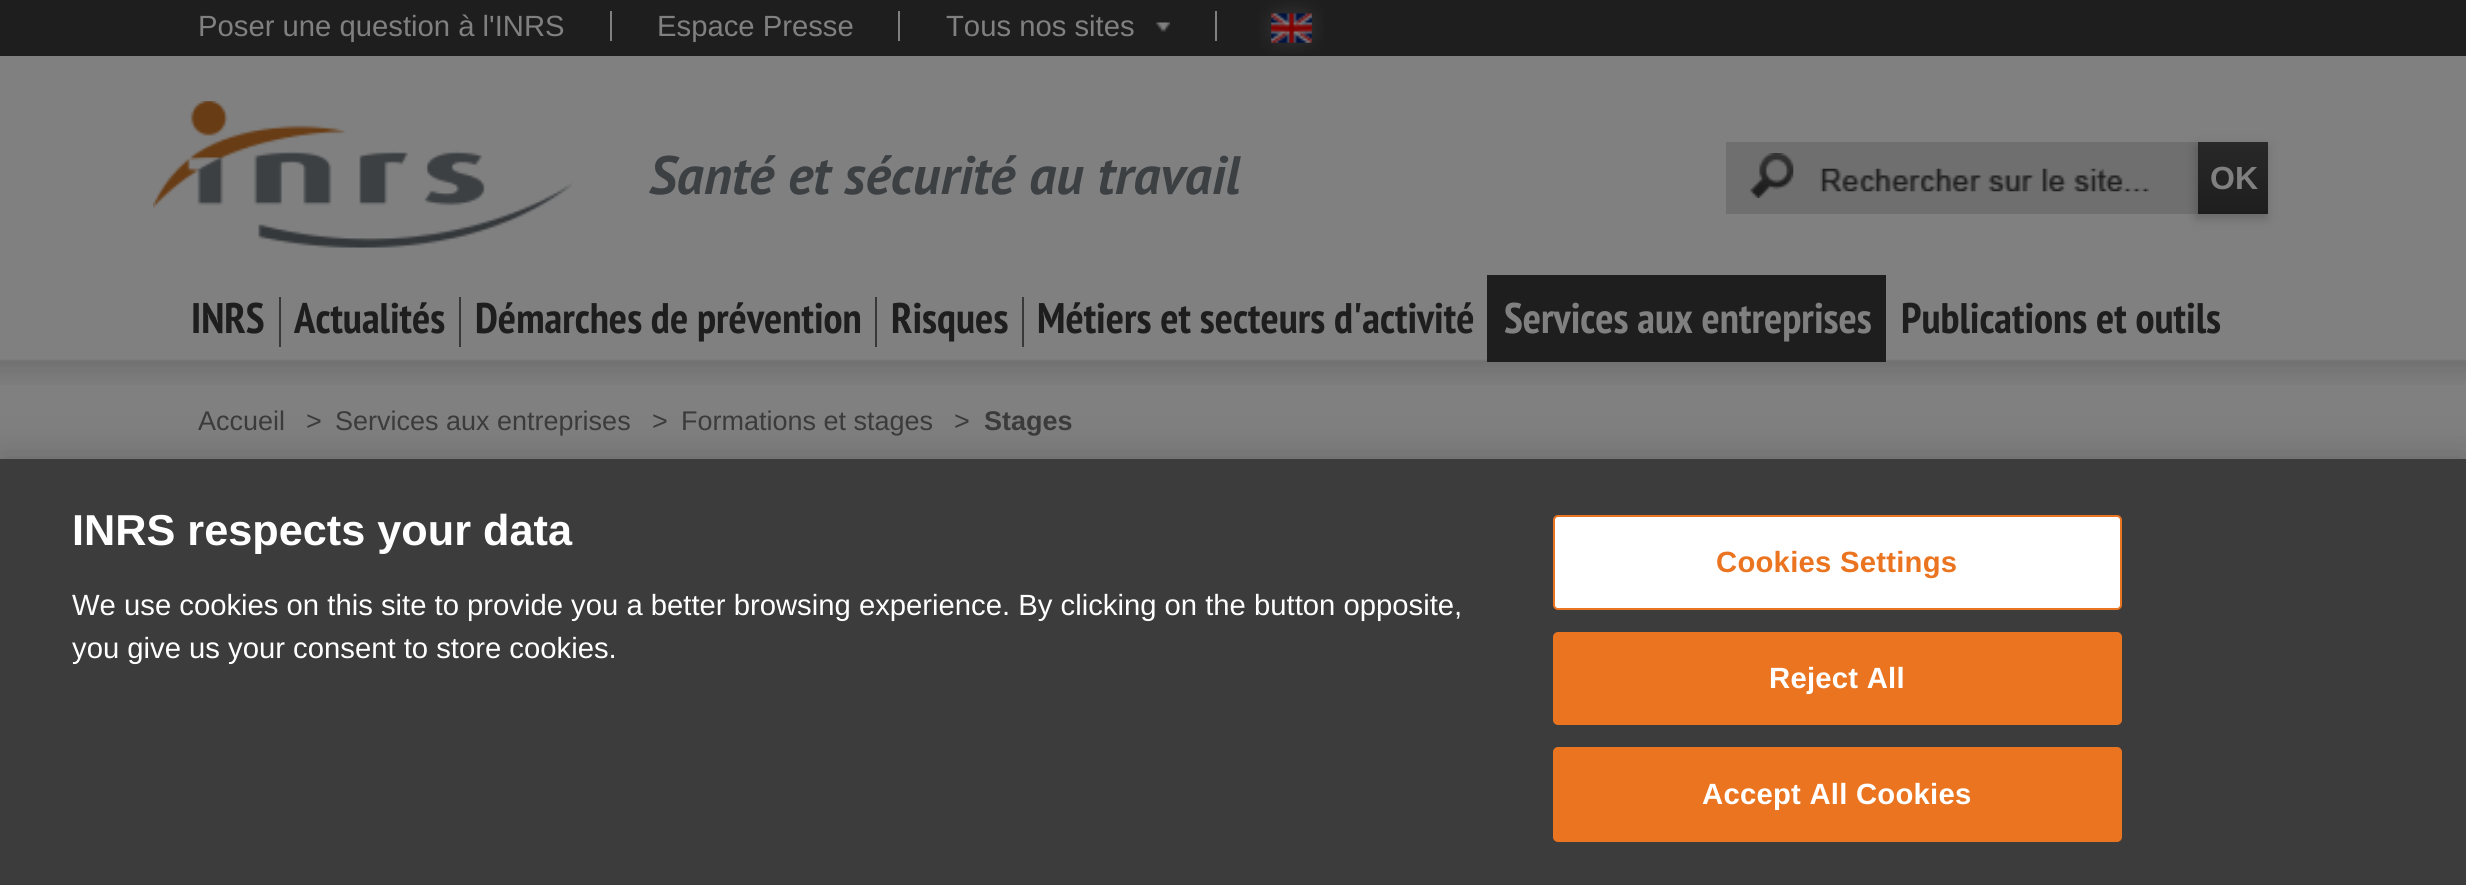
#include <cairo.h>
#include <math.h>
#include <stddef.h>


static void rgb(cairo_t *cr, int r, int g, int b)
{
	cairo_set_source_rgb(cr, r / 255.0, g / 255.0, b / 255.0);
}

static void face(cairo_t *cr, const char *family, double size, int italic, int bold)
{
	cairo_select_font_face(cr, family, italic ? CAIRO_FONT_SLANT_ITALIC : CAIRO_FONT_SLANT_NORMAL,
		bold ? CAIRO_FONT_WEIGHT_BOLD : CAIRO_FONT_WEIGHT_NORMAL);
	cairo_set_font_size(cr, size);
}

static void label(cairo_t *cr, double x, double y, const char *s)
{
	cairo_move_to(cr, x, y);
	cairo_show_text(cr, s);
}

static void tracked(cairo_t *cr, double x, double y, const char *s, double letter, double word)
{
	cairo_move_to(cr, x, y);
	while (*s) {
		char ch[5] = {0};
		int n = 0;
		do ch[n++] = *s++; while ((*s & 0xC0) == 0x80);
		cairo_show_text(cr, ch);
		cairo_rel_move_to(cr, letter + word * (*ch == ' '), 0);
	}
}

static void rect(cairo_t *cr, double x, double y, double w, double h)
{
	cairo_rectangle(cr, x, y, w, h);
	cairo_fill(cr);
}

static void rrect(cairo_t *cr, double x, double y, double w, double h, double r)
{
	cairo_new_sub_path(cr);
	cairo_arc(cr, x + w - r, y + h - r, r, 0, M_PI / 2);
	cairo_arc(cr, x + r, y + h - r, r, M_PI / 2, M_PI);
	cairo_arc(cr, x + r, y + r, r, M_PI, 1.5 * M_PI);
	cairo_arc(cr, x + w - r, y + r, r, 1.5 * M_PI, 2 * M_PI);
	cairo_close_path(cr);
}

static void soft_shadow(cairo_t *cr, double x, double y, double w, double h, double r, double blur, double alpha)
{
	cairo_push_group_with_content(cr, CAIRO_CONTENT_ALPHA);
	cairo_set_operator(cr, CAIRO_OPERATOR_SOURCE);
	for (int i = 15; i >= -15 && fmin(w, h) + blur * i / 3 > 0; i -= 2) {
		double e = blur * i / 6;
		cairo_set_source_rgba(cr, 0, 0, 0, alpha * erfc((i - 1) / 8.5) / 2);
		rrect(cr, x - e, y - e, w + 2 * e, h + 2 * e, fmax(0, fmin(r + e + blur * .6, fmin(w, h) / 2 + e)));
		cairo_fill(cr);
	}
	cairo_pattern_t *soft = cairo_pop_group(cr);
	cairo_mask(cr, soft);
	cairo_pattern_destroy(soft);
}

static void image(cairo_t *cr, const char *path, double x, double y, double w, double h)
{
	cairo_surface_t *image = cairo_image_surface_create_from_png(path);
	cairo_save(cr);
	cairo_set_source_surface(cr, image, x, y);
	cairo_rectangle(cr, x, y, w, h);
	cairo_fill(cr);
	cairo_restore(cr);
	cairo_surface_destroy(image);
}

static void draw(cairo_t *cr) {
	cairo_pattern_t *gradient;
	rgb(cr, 128, 128, 128);
	cairo_paint(cr);
	rgb(cr, 30, 30, 30);
	rect(cr, 0, 0, 2466, 56);
	rgb(cr, 128, 128, 128);
	rect(cr, 610, 11, 2, 30);
	face(cr, "Liberation Sans", 29.25, 0, 0);
	label(cr, 198, 36, "Poser une question à l'INRS");
	rect(cr, 898, 11, 2, 30);
	label(cr, 657, 36, "Espace Presse");
	rect(cr, 1215, 11, 2, 30);
	label(cr, 946, 36, "Tous nos sites");
	image(cr, "image0.png", 1156, 22, 14, 10);
	image(cr, "image1.png", 1259, 0, 65, 54);
	image(cr, "image2.png", 1271, 13, 41, 30);
	image(cr, "image3.png", 0, 359, 2466, 26);
	image(cr, "image4.png", 153, 101, 421, 147);
	face(cr, "PT Sans", 54, 1, 1);
	rgb(cr, 60, 64, 67);
	label(cr, 649, 194, "Santé et sécurité au travail");
	rgb(cr, 111, 111, 111);
	rect(cr, 1726, 142, 472, 72);
	image(cr, "image5.png", 1750, 153, 44, 45);
	image(cr, "image6.png", 1820, 168, 329, 24);
	rgb(cr, 0, 0, 0);
	soft_shadow(cr, 2196, 146, 70, 72, 0, 5.5, 0.2);
	gradient = cairo_pattern_create_linear(2233, 142, 2233, 214);
	cairo_pattern_add_color_stop_rgba(gradient, 0, 0.157, 0.157, 0.157, 1);
	cairo_pattern_add_color_stop_rgba(gradient, 1, 0.118, 0.118, 0.118, 1);
	cairo_set_source(cr, gradient);
	cairo_pattern_destroy(gradient);
	rect(cr, 2198, 142, 70, 72);
	face(cr, "Liberation Sans", 32, 0, 1);
	rgb(cr, 128, 128, 128);
	label(cr, 2210, 189, "OK");
	rgb(cr, 56, 56, 56);
	rect(cr, 279, 297, 2, 50);
	face(cr, "PT Sans Narrow", 42.75, 0, 1);
	rgb(cr, 30, 30, 30);
	label(cr, 191, 333, "INRS");
	rgb(cr, 56, 56, 56);
	rect(cr, 459, 297, 2, 50);
	rgb(cr, 30, 30, 30);
	label(cr, 294, 333, "Actualités");
	rgb(cr, 56, 56, 56);
	rect(cr, 875, 297, 2, 50);
	rgb(cr, 30, 30, 30);
	label(cr, 475, 333, "Démarches de prévention");
	rgb(cr, 56, 56, 56);
	rect(cr, 1022, 297, 2, 50);
	rgb(cr, 30, 30, 30);
	label(cr, 891, 333, "Risques");
	label(cr, 1037, 333, "Métiers et secteurs d'activité");
	rect(cr, 1487, 275, 399, 87);
	rgb(cr, 128, 128, 128);
	label(cr, 1504, 333, "Services aux entreprises");
	rgb(cr, 30, 30, 30);
	label(cr, 1901, 333, "Publications et outils");
	face(cr, "Liberation Sans", 27, 0, 0);
	rgb(cr, 59, 59, 59);
	label(cr, 198, 430, "Accueil");
	label(cr, 306, 430, ">");
	label(cr, 335, 430, "Services aux entreprises");
	label(cr, 652, 430, ">");
	label(cr, 681, 430, "Formations et stages");
	label(cr, 954, 430, ">");
	face(cr, "Liberation Sans", 27, 0, 1);
	label(cr, 984, 430, "Stages");
	rgb(cr, 0, 0, 0);
	soft_shadow(cr, 0, 459, 2466, 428, 0, 20, 0.2);
	rgb(cr, 60, 60, 60);
	rect(cr, 0, 459, 2466, 426);
	face(cr, "Liberation Sans", 43.25, 0, 1);
	rgb(cr, 255, 255, 255);
	label(cr, 72, 545, "INRS respects your data");
	face(cr, "Liberation Sans", 29.25, 0, 0);
	label(cr, 72, 615, "We use cookies on this site to provide you a better browsing experience. By clicking on the button opposite,");
	label(cr, 72, 658, "you give us your consent to store cookies.");
	rrect(cr, 1554, 516, 567, 93, 4);
	cairo_fill_preserve(cr);
	rgb(cr, 234, 116, 32);
	cairo_stroke(cr);
	face(cr, "Liberation Sans", 29.25, 0, 1);
	tracked(cr, 1716, 572, "Cookies Settings", 0.25, 0);
	rrect(cr, 1554, 633, 567, 91, 4);
	cairo_fill_preserve(cr);
	cairo_stroke(cr);
	rgb(cr, 255, 255, 255);
	tracked(cr, 1769, 688, "Reject All", 0.25, 0);
	rgb(cr, 234, 116, 32);
	rrect(cr, 1554, 748, 567, 93, 4);
	cairo_fill_preserve(cr);
	cairo_stroke(cr);
	rgb(cr, 255, 255, 255);
	tracked(cr, 1702, 804, "Accept All Cookies", 0.25, 0);
}

int main(void) {
	cairo_surface_t *surface = cairo_image_surface_create(CAIRO_FORMAT_RGB24, 2466, 885);
	cairo_t *cr = cairo_create(surface);
	cairo_font_options_t *options = cairo_font_options_create();
	cairo_font_options_set_hint_metrics(options, CAIRO_HINT_METRICS_OFF);
	cairo_font_options_set_hint_style(options, CAIRO_HINT_STYLE_NONE);
	cairo_set_font_options(cr, options);
	cairo_set_miter_limit(cr, 4);
	draw(cr);
	cairo_surface_write_to_png(surface, "render.png");
	cairo_font_options_destroy(options);
	cairo_destroy(cr);
	cairo_surface_destroy(surface);
	return 0;
}
